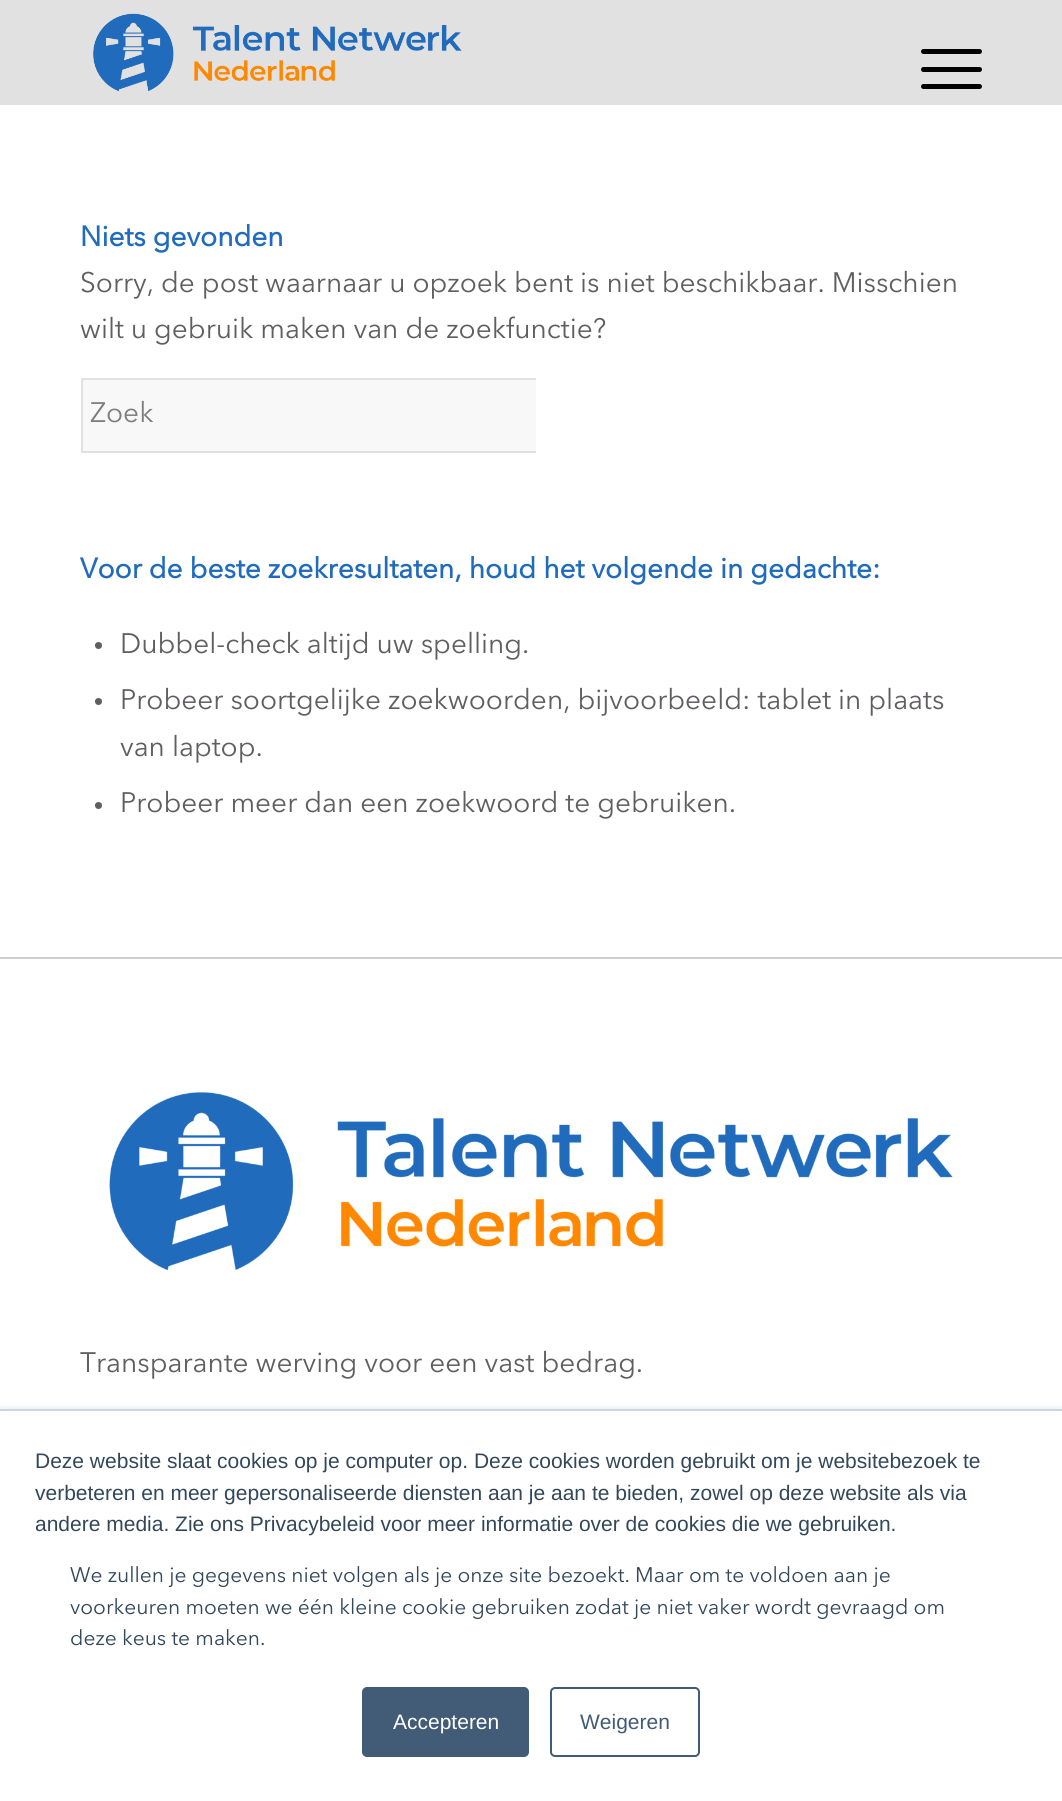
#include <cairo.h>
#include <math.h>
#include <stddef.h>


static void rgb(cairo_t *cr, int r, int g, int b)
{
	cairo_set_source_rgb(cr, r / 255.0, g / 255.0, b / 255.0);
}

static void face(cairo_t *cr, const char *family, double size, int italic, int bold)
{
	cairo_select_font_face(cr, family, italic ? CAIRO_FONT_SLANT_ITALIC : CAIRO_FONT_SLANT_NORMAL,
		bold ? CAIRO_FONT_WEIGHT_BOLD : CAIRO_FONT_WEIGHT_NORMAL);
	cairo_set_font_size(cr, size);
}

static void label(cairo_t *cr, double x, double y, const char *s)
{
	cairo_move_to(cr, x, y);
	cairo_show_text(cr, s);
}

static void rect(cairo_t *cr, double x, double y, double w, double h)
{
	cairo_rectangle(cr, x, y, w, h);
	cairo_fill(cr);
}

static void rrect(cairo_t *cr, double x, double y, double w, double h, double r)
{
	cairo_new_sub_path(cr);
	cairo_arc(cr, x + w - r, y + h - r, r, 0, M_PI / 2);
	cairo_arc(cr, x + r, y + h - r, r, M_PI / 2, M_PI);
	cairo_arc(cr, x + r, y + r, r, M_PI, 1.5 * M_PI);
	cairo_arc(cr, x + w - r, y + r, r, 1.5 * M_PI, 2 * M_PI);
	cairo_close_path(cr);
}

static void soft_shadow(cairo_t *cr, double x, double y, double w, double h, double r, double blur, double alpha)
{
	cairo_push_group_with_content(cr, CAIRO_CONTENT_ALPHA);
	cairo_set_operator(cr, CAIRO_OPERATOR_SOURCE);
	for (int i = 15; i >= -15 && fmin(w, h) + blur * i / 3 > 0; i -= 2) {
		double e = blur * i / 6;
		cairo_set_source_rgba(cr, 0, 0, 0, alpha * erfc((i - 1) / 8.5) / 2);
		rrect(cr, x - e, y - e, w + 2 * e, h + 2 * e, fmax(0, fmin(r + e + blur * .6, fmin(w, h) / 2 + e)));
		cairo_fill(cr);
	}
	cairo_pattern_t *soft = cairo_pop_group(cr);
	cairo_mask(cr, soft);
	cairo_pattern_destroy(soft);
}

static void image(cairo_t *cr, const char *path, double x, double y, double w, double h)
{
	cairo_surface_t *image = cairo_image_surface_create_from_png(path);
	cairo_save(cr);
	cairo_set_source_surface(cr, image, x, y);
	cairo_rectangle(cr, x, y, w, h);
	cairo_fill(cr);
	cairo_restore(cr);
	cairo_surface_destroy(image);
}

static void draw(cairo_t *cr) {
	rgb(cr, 255, 255, 255);
	cairo_paint(cr);
	rgb(cr, 225, 225, 225);
	rect(cr, 0, 0, 1062, 105);
	image(cr, "image0.png", 93, 13, 369, 79);
	rgb(cr, 1, 1, 1);
	rrect(cr, 921, 67, 61, 5, 2.5);
	cairo_fill(cr);
	rrect(cr, 921, 49, 61, 5, 2.5);
	cairo_fill(cr);
	rrect(cr, 921, 84, 61, 5, 2.5);
	cairo_fill(cr);
	face(cr, "Avenir Next", 28, 0, 1);
	rgb(cr, 32, 107, 188);
	label(cr, 80, 246, "Niets gevonden");
	face(cr, "Avenir Next", 28, 0, 0);
	rgb(cr, 97, 94, 97);
	label(cr, 80, 292, "Sorry, de post waarnaar u opzoek bent is niet beschikbaar. Misschien");
	label(cr, 80, 338, "wilt u gebruik maken van de zoekfunctie?");
	rgb(cr, 248, 248, 248);
	rect(cr, 83, 380, 453, 71);
	cairo_rectangle(cr, 82, 379, 523, 73);
	rgb(cr, 225, 225, 225);
	cairo_stroke(cr);
	rgb(cr, 125, 125, 125);
	label(cr, 90, 422, "Zoek");
	rgb(cr, 255, 255, 255);
	rect(cr, 536, 378, 70, 75);
	face(cr, "Avenir Next", 28, 0, 1);
	rgb(cr, 32, 107, 188);
	label(cr, 80, 578, "Voor de beste zoekresultaten, houd het volgende in gedachte:");
	rgb(cr, 97, 94, 97);
	cairo_new_path(cr);
	cairo_arc(cr, 98.5, 645.5, 3.5, 0, 2 * M_PI);
	cairo_fill(cr);
	face(cr, "Avenir Next", 28, 0, 0);
	label(cr, 120, 653, "Dubbel-check altijd uw spelling.");
	cairo_new_path(cr);
	cairo_arc(cr, 98.5, 701.5, 3.5, 0, 2 * M_PI);
	cairo_fill(cr);
	label(cr, 120, 709, "Probeer soortgelijke zoekwoorden, bijvoorbeeld: tablet in plaats");
	label(cr, 120, 756, "van laptop.");
	cairo_new_path(cr);
	cairo_arc(cr, 98.5, 805.5, 3.5, 0, 2 * M_PI);
	cairo_fill(cr);
	label(cr, 120, 812, "Probeer meer dan een zoekwoord te gebruiken.");
	rgb(cr, 206, 206, 206);
	rect(cr, 0, 957, 1062, 2);
	image(cr, "image1.png", 109, 1092, 844, 179);
	rgb(cr, 97, 94, 97);
	label(cr, 80, 1372, "Transparante werving voor een vast bedrag.");
	rgb(cr, 234, 240, 246);
	soft_shadow(cr, 0, 1407, 1062, 394, 0, 2.5, 1);
	rgb(cr, 255, 255, 255);
	rect(cr, 0, 1411, 1062, 390);
	rgb(cr, 203, 214, 226);
	rect(cr, 0, 1409, 1062, 2);
	face(cr, "Liberation Sans", 21, 0, 0);
	rgb(cr, 51, 71, 91);
	label(cr, 35, 1468, "Deze website slaat cookies op je computer op. Deze cookies worden gebruikt om je websitebezoek te");
	label(cr, 35, 1500, "verbeteren en meer gepersonaliseerde diensten aan je aan te bieden, zowel op deze website als via");
	label(cr, 35, 1531, "andere media. Zie ons Privacybeleid voor meer informatie over de cookies die we gebruiken.");
	face(cr, "Avenir Next", 21, 0, 0);
	label(cr, 70, 1582, "We zullen je gegevens niet volgen als je onze site bezoekt. Maar om te voldoen aan je");
	label(cr, 70, 1614, "voorkeuren moeten we één kleine cookie gebruiken zodat je niet vaker wordt gevraagd om");
	label(cr, 70, 1645, "deze keus te maken.");
	rgb(cr, 66, 91, 118);
	rrect(cr, 363, 1688, 165, 68, 4);
	cairo_fill_preserve(cr);
	cairo_stroke(cr);
	face(cr, "Liberation Sans", 21, 0, 0);
	rgb(cr, 255, 255, 255);
	label(cr, 393, 1729, "Accepteren");
	rrect(cr, 551, 1688, 148, 68, 4);
	rgb(cr, 66, 91, 118);
	cairo_stroke(cr);
	label(cr, 580, 1729, "Weigeren");
}

int main(void) {
	cairo_surface_t *surface = cairo_image_surface_create(CAIRO_FORMAT_RGB24, 1062, 1801);
	cairo_t *cr = cairo_create(surface);
	cairo_font_options_t *options = cairo_font_options_create();
	cairo_font_options_set_hint_metrics(options, CAIRO_HINT_METRICS_OFF);
	cairo_font_options_set_hint_style(options, CAIRO_HINT_STYLE_NONE);
	cairo_set_font_options(cr, options);
	cairo_set_miter_limit(cr, 4);
	draw(cr);
	cairo_surface_write_to_png(surface, "render.png");
	cairo_font_options_destroy(options);
	cairo_destroy(cr);
	cairo_surface_destroy(surface);
	return 0;
}
